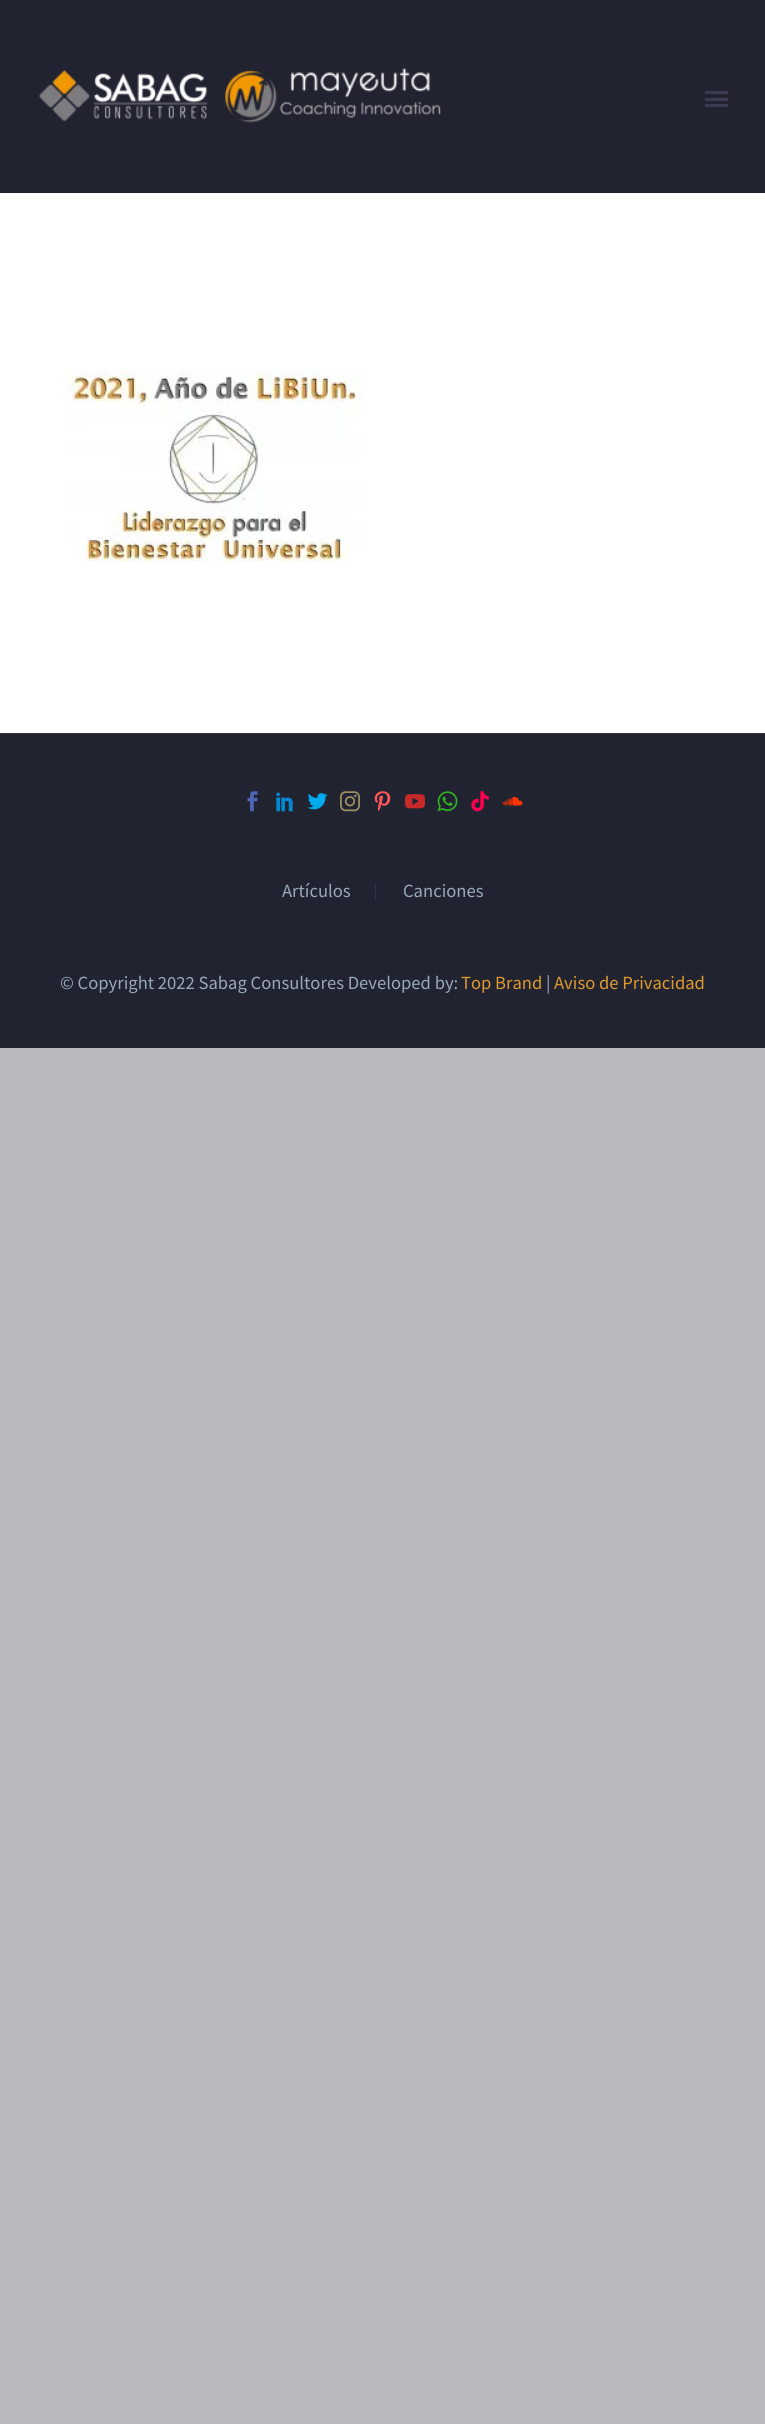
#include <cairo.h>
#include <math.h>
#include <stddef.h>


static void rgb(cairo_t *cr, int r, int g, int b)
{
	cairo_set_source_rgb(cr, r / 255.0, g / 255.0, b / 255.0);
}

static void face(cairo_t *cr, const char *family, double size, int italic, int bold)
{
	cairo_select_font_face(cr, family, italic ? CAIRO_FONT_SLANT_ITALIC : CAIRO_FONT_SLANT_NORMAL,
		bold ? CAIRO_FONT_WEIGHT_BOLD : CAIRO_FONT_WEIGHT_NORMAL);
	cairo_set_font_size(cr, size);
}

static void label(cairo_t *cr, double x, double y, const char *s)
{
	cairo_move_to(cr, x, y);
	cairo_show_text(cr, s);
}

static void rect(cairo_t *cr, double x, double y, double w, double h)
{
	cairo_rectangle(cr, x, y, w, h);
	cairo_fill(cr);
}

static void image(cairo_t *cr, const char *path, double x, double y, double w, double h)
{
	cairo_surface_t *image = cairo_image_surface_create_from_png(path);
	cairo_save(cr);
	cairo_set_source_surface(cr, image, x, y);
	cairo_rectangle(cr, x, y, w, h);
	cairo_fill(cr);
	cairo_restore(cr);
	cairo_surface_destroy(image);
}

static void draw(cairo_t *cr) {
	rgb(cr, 185, 184, 190);
	cairo_paint(cr);
	rgb(cr, 33, 35, 49);
	rect(cr, 0, 0, 765, 193);
	image(cr, "image0.png", 38, 68, 404, 55);
	rgb(cr, 60, 57, 80);
	rect(cr, 705, 91, 23, 3);
	rect(cr, 705, 98, 23, 3);
	rect(cr, 705, 104, 23, 3);
	rgb(cr, 255, 255, 255);
	rect(cr, 0, 193, 765, 540);
	image(cr, "image1.png", 65, 369, 297, 193);
	rgb(cr, 33, 35, 49);
	rect(cr, 0, 734, 765, 314);
	rgb(cr, 49, 54, 70);
	rect(cr, 0, 733, 765, 1);
	image(cr, "image2.png", 247, 791, 11, 21);
	image(cr, "image3.png", 276, 792, 17, 20);
	image(cr, "image4.png", 307, 793, 21, 17);
	image(cr, "image5.png", 340, 791, 20, 21);
	image(cr, "image6.png", 374, 791, 17, 21);
	image(cr, "image7.png", 405, 794, 20, 15);
	image(cr, "image8.png", 437, 791, 21, 21);
	image(cr, "image9.png", 471, 791, 18, 21);
	image(cr, "image10.png", 502, 796, 21, 10);
	face(cr, "Source Sans Pro", 18.6, 0, 0);
	rgb(cr, 153, 169, 181);
	label(cr, 282, 897, "Artículos");
	rgb(cr, 51, 49, 70);
	rect(cr, 375, 883, 1, 17);
	rgb(cr, 153, 169, 181);
	label(cr, 403, 897, "Canciones");
	label(cr, 60, 989, "© Copyright 2022 Sabag Consultores Developed by:");
	rgb(cr, 222, 154, 45);
	label(cr, 461, 989, "Top Brand");
	rgb(cr, 153, 169, 181);
	label(cr, 546, 989, "|");
	rgb(cr, 222, 154, 45);
	label(cr, 554, 989, "Aviso de Privacidad");
}

int main(void) {
	cairo_surface_t *surface = cairo_image_surface_create(CAIRO_FORMAT_RGB24, 765, 2424);
	cairo_t *cr = cairo_create(surface);
	cairo_font_options_t *options = cairo_font_options_create();
	cairo_font_options_set_hint_metrics(options, CAIRO_HINT_METRICS_OFF);
	cairo_font_options_set_hint_style(options, CAIRO_HINT_STYLE_NONE);
	cairo_set_font_options(cr, options);
	cairo_set_miter_limit(cr, 4);
	draw(cr);
	cairo_surface_write_to_png(surface, "render.png");
	cairo_font_options_destroy(options);
	cairo_destroy(cr);
	cairo_surface_destroy(surface);
	return 0;
}
